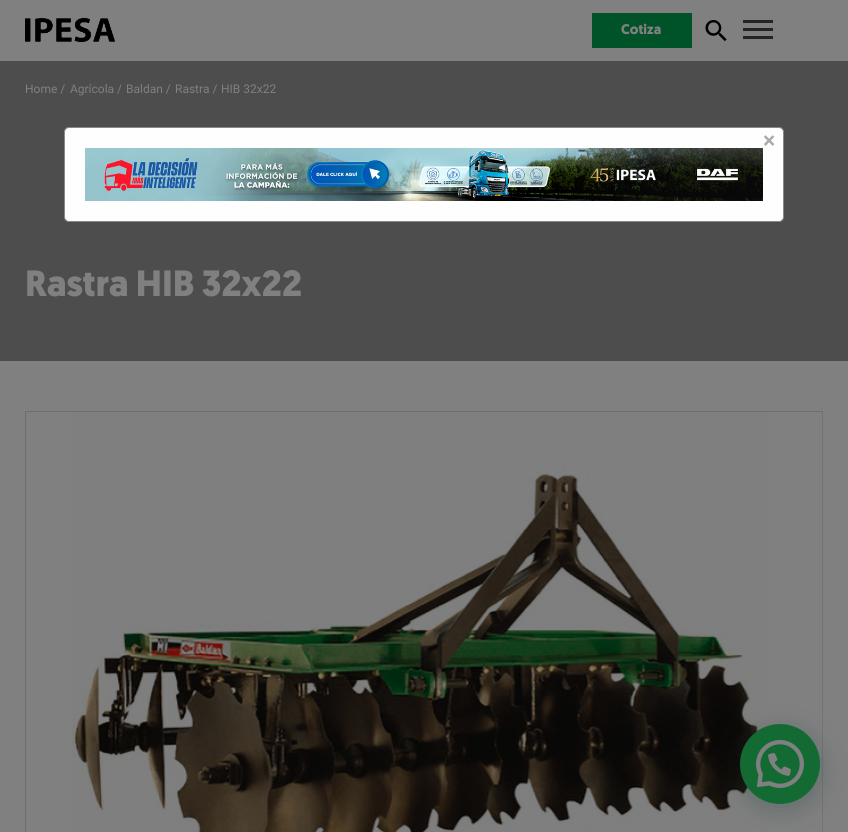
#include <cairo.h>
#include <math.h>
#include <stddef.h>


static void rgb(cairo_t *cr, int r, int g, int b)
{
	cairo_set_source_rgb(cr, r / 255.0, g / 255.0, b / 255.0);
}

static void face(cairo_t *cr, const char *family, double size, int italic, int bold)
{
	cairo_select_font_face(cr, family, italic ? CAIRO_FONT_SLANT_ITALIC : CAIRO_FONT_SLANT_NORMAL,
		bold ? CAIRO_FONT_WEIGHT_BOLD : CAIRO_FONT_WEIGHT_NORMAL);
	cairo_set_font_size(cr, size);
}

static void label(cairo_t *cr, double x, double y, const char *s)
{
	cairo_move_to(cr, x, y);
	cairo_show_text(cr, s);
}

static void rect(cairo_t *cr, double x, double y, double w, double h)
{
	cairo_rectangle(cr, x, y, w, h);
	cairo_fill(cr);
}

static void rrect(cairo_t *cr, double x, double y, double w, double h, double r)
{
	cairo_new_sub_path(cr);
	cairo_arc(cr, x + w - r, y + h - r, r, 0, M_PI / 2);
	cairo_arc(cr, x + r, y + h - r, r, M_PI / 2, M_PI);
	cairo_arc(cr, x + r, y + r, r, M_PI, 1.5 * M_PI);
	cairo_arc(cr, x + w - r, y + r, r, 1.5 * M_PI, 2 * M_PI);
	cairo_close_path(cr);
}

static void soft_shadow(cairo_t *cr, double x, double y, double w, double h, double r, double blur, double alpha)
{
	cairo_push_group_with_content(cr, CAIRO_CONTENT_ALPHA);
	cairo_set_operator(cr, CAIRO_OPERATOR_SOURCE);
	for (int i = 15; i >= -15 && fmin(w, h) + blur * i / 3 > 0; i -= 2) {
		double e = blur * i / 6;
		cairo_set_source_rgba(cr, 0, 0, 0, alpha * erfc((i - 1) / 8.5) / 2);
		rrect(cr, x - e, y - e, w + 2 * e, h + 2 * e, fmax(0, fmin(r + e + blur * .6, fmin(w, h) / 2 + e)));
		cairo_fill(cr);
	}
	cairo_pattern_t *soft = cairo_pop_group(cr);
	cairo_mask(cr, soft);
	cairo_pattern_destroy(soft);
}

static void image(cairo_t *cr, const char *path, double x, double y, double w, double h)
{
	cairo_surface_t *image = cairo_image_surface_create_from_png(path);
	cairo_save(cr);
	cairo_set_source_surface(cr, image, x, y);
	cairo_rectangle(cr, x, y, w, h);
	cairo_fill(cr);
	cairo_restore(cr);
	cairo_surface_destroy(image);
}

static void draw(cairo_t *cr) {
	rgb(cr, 128, 128, 128);
	cairo_paint(cr);
	image(cr, "image0.png", 25, 17, 90, 26);
	rgb(cr, 0, 83, 40);
	rect(cr, 592, 13, 100, 35);
	face(cr, "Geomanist", 14, 0, 1);
	rgb(cr, 128, 128, 128);
	label(cr, 621, 34, "Cotiza");
	image(cr, "image1.png", 705, 20, 22, 22);
	rgb(cr, 36, 36, 36);
	rect(cr, 743, 20, 30, 3);
	rect(cr, 743, 28, 30, 3);
	rect(cr, 743, 36, 30, 3);
	rgb(cr, 77, 77, 77);
	rect(cr, 0, 61, 848, 300);
	face(cr, "Roboto", 12, 0, 0);
	rgb(cr, 128, 128, 128);
	label(cr, 25, 93, "Home /");
	label(cr, 70, 93, "Agrícola /");
	label(cr, 126, 93, "Baldan /");
	label(cr, 175, 93, "Rastra /");
	label(cr, 221, 93, "HIB 32x22");
	face(cr, "Geomanist", 36.5, 0, 1);
	label(cr, 25, 296, "Rastra HIB 32x22");
	rgb(cr, 254, 254, 254);
	rrect(cr, 64.5, 127.5, 719, 94, 4.5);
	cairo_fill_preserve(cr);
	rgb(cr, 136, 136, 136);
	cairo_set_line_width(cr, 1);
	cairo_stroke(cr);
	face(cr, "Roboto", 22, 0, 1);
	rgb(cr, 170, 170, 170);
	label(cr, 763, 148, "×");
	image(cr, "image2.png", 85, 148, 678, 53);
	cairo_rectangle(cr, 25.5, 411.5, 797, 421);
	rgb(cr, 110, 110, 110);
	cairo_stroke(cr);
	image(cr, "image3.png", 72, 412, 751, 420);
	rgb(cr, 4, 47, 42);
	soft_shadow(cr, 741, 730, 80, 80, 40, 12, 0.24);
	rgb(cr, 19, 106, 51);
	cairo_arc(cr, 780, 764, 40, 0, 2 * M_PI);
	cairo_fill(cr);
	image(cr, "image4.png", 756, 740, 48, 48);
}

int main(void) {
	cairo_surface_t *surface = cairo_image_surface_create(CAIRO_FORMAT_RGB24, 848, 832);
	cairo_t *cr = cairo_create(surface);
	cairo_font_options_t *options = cairo_font_options_create();
	cairo_font_options_set_hint_metrics(options, CAIRO_HINT_METRICS_OFF);
	cairo_font_options_set_hint_style(options, CAIRO_HINT_STYLE_NONE);
	cairo_set_font_options(cr, options);
	cairo_set_miter_limit(cr, 4);
	draw(cr);
	cairo_surface_write_to_png(surface, "render.png");
	cairo_font_options_destroy(options);
	cairo_destroy(cr);
	cairo_surface_destroy(surface);
	return 0;
}
